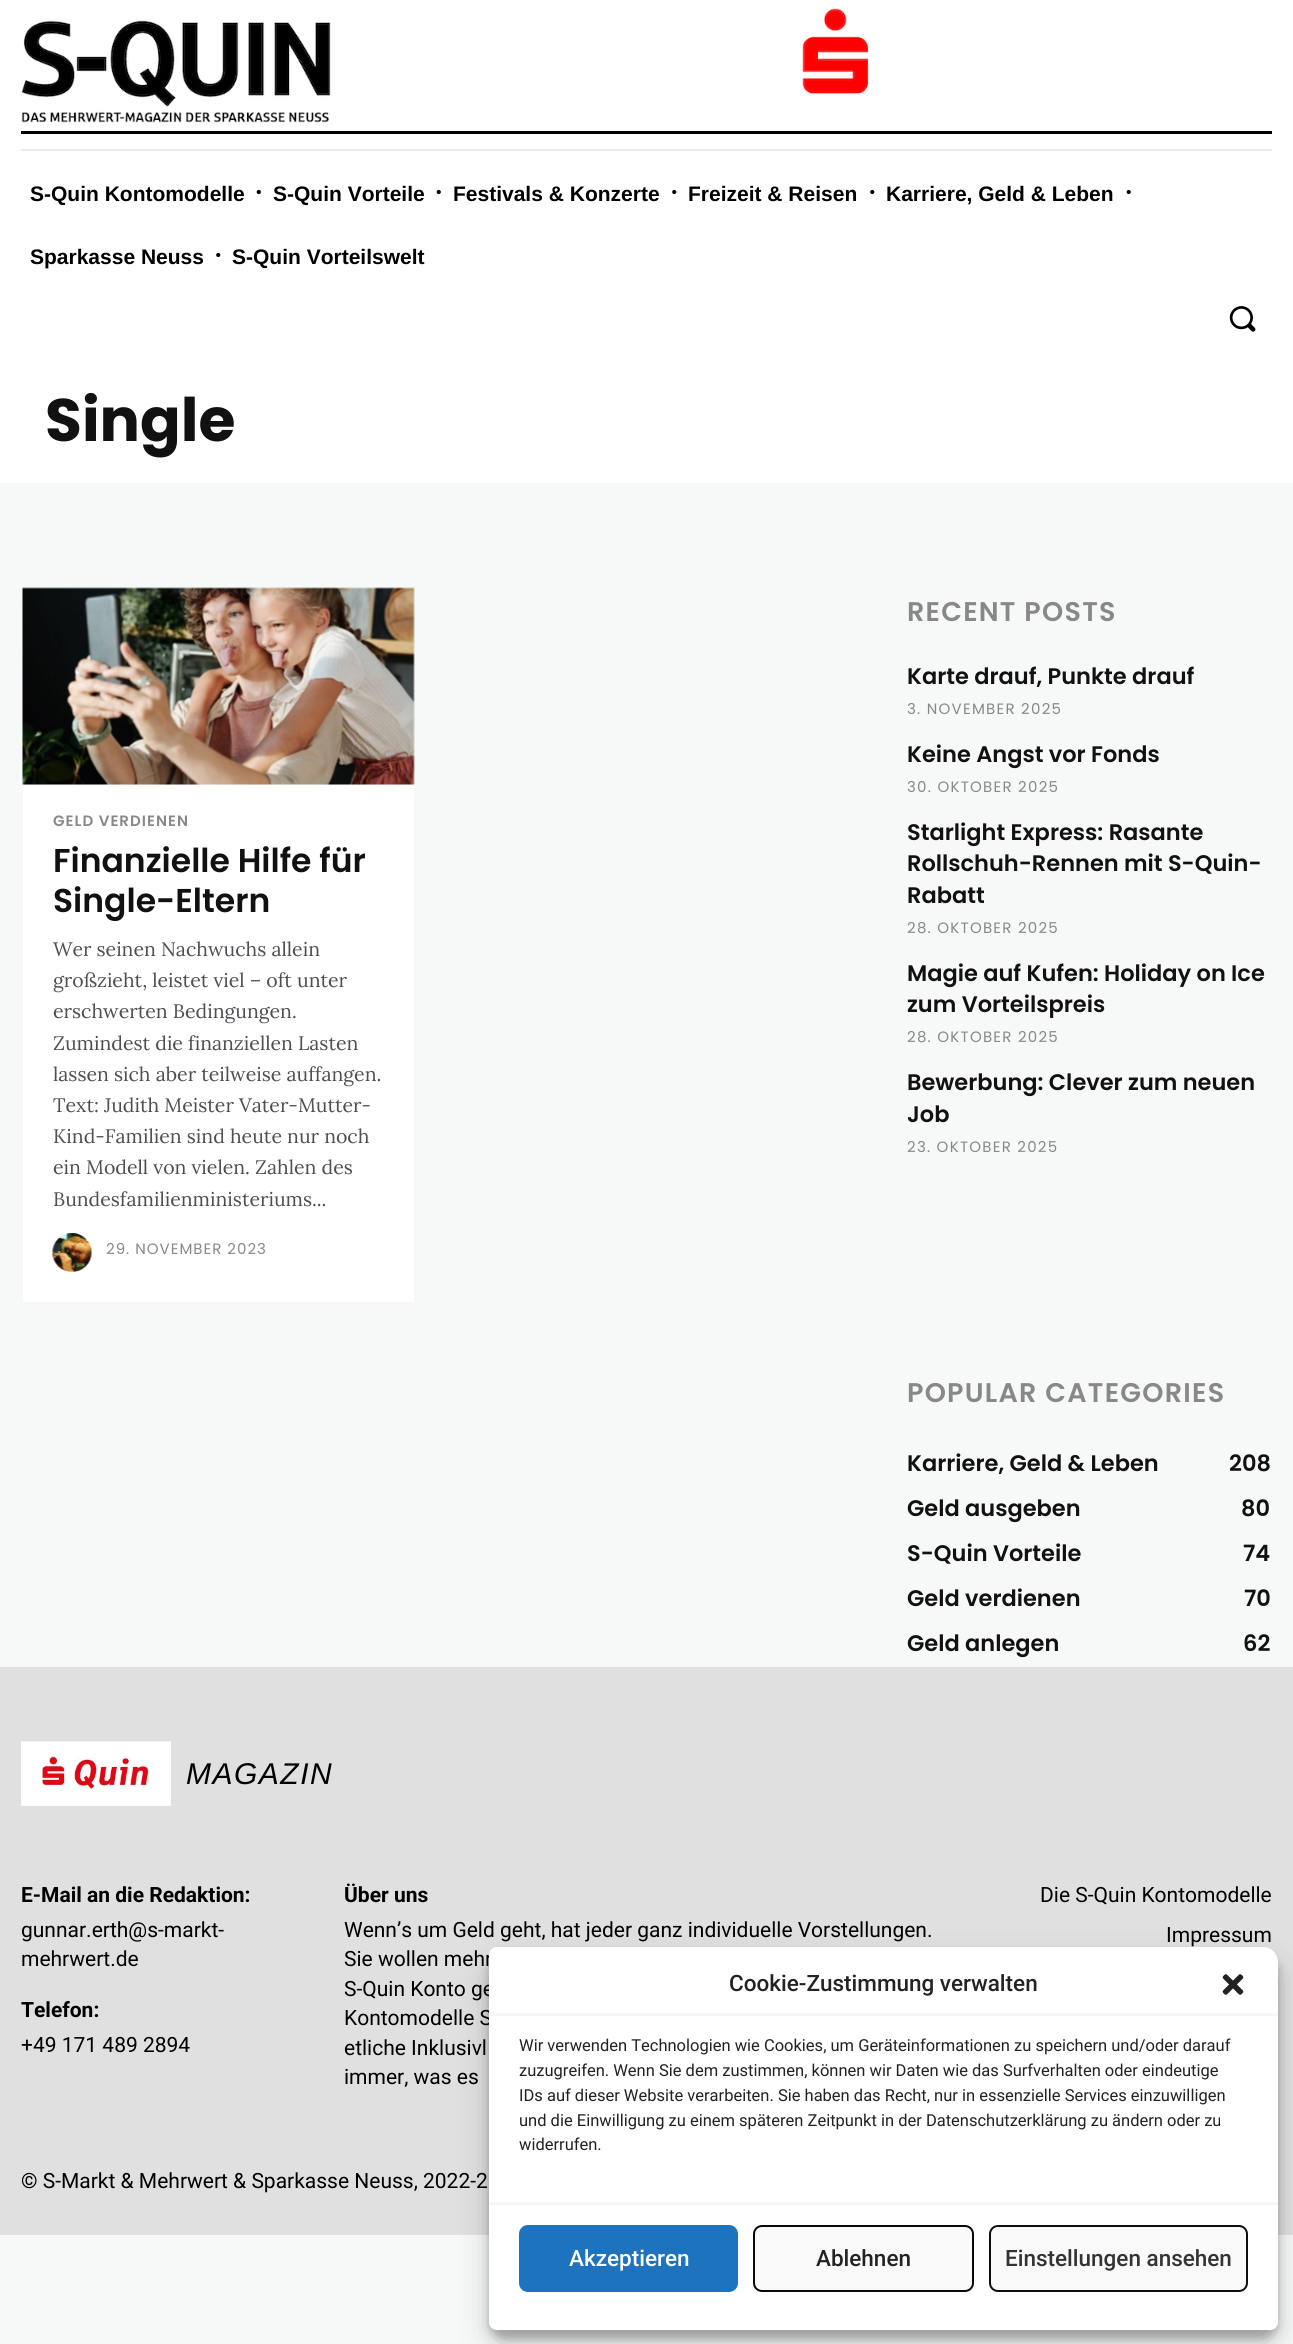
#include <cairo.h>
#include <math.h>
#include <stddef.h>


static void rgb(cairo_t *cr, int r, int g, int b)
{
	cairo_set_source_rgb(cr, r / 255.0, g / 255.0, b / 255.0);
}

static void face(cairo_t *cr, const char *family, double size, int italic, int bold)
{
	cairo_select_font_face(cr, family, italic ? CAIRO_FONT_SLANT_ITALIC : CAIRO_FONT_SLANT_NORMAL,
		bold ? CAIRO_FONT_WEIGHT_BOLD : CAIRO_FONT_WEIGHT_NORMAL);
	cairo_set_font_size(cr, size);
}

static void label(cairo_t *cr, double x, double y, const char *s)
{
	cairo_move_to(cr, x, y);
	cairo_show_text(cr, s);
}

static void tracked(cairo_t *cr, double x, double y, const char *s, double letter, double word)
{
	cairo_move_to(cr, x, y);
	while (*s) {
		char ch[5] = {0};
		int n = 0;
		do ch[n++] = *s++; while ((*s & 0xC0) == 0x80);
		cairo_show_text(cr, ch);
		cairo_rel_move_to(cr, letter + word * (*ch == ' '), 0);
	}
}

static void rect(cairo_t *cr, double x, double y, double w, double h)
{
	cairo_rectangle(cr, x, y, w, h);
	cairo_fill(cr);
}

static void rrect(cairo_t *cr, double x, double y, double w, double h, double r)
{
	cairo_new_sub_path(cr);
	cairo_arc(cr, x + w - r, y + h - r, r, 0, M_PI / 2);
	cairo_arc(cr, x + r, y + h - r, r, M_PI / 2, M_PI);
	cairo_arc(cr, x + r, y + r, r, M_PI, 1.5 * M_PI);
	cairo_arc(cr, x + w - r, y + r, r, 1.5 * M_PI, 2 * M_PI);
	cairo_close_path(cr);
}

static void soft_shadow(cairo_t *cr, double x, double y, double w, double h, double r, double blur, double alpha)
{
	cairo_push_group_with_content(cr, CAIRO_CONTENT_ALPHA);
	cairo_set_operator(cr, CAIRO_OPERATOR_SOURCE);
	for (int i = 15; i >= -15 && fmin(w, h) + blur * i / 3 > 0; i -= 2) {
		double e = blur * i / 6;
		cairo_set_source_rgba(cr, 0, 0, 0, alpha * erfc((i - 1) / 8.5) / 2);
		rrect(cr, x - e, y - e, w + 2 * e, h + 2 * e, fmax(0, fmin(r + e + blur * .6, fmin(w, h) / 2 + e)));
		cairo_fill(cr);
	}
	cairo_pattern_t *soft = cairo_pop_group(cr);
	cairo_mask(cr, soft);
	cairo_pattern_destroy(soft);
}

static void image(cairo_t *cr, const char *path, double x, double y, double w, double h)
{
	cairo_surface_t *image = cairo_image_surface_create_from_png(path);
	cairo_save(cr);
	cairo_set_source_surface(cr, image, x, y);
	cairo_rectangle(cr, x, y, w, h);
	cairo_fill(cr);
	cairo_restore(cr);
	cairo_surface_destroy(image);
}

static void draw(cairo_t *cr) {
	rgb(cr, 247, 248, 248);
	cairo_paint(cr);
	rgb(cr, 255, 255, 255);
	rect(cr, 0, 0, 1293, 483);
	image(cr, "image0.png", 21, 8, 848, 115);
	rgb(cr, 0, 0, 0);
	rect(cr, 21, 131, 1251, 3);
	rgb(cr, 235, 235, 235);
	rect(cr, 21, 149, 1251, 2);
	face(cr, "Liberation Sans", 21, 0, 1);
	rgb(cr, 0, 0, 0);
	label(cr, 30, 201, "S-Quin Kontomodelle");
	image(cr, "image1.png", 256, 189, 5, 6);
	label(cr, 273, 201, "S-Quin Vorteile");
	image(cr, "image1.png", 436, 189, 5, 6);
	label(cr, 453, 201, "Festivals & Konzerte");
	image(cr, "image2.png", 672, 189, 5, 6);
	label(cr, 688, 201, "Freizeit & Reisen");
	image(cr, "image2.png", 870, 189, 5, 6);
	label(cr, 886, 201, "Karriere, Geld & Leben");
	image(cr, "image1.png", 1126, 189, 5, 6);
	label(cr, 30, 264, "Sparkasse Neuss");
	image(cr, "image2.png", 216, 252, 5, 6);
	label(cr, 232, 264, "S-Quin Vorteilswelt");
	image(cr, "image3.png", 1229, 306, 27, 26);
	face(cr, "Poppins", 60, 0, 1);
	rgb(cr, 17, 17, 17);
	label(cr, 45, 441, "Single");
	image(cr, "image4.png", 22, 587, 393, 198);
	rgb(cr, 255, 255, 255);
	rect(cr, 23, 785, 391, 517);
	face(cr, "Poppins SemiBold", 15, 0, 0);
	rgb(cr, 136, 136, 136);
	tracked(cr, 53, 826, "GELD VERDIENEN", 1, 0);
	face(cr, "Poppins SemiBold", 33, 0, 0);
	rgb(cr, 17, 17, 17);
	label(cr, 53, 872, "Finanzielle Hilfe für");
	label(cr, 53, 912, "Single-Eltern");
	face(cr, "Lora", 19.5, 0, 0);
	rgb(cr, 76, 79, 83);
	label(cr, 53, 956, "Wer seinen Nachwuchs allein");
	label(cr, 53, 987, "großzieht, leistet viel – oft unter");
	label(cr, 53, 1018, "erschwerten Bedingungen.");
	label(cr, 53, 1050, "Zumindest die finanziellen Lasten");
	label(cr, 53, 1081, "lassen sich aber teilweise auffangen.");
	label(cr, 53, 1112, "Text: Judith Meister Vater-Mutter-");
	label(cr, 53, 1143, "Kind-Familien sind heute nur noch");
	label(cr, 53, 1174, "ein Modell von vielen. Zahlen des");
	label(cr, 53, 1206, "Bundesfamilienministeriums...");
	image(cr, "image5.png", 52, 1233, 40, 39);
	face(cr, "Poppins", 15, 0, 0);
	rgb(cr, 136, 136, 136);
	tracked(cr, 106, 1254, "29. NOVEMBER 2023", 1, 0);
	face(cr, "Poppins SemiBold", 27, 0, 0);
	tracked(cr, 907, 621, "RECENT POSTS", 1.25, 0);
	face(cr, "Poppins SemiBold", 22.5, 0, 0);
	rgb(cr, 17, 17, 17);
	label(cr, 907, 684, "Karte drauf, Punkte drauf");
	face(cr, "Poppins", 15, 0, 0);
	rgb(cr, 136, 136, 136);
	tracked(cr, 907, 714, "3. NOVEMBER 2025", 1.25, 0);
	face(cr, "Poppins SemiBold", 22.5, 0, 0);
	rgb(cr, 17, 17, 17);
	label(cr, 907, 762, "Keine Angst vor Fonds");
	face(cr, "Poppins", 15, 0, 0);
	rgb(cr, 136, 136, 136);
	tracked(cr, 907, 792, "30. OKTOBER 2025", 1.25, 0);
	face(cr, "Poppins SemiBold", 22.5, 0, 0);
	rgb(cr, 17, 17, 17);
	label(cr, 907, 840, "Starlight Express: Rasante");
	label(cr, 907, 871, "Rollschuh-Rennen mit S-Quin-");
	label(cr, 907, 903, "Rabatt");
	face(cr, "Poppins", 15, 0, 0);
	rgb(cr, 136, 136, 136);
	tracked(cr, 907, 933, "28. OKTOBER 2025", 1.25, 0);
	face(cr, "Poppins SemiBold", 22.5, 0, 0);
	rgb(cr, 17, 17, 17);
	label(cr, 907, 981, "Magie auf Kufen: Holiday on Ice");
	label(cr, 907, 1012, "zum Vorteilspreis");
	face(cr, "Poppins", 15, 0, 0);
	rgb(cr, 136, 136, 136);
	tracked(cr, 907, 1042, "28. OKTOBER 2025", 1.25, 0);
	face(cr, "Poppins SemiBold", 22.5, 0, 0);
	rgb(cr, 17, 17, 17);
	label(cr, 907, 1090, "Bewerbung: Clever zum neuen");
	label(cr, 907, 1122, "Job");
	face(cr, "Poppins", 15, 0, 0);
	rgb(cr, 136, 136, 136);
	tracked(cr, 907, 1152, "23. OKTOBER 2025", 1.25, 0);
	face(cr, "Poppins SemiBold", 27, 0, 0);
	tracked(cr, 907, 1402, "POPULAR CATEGORIES", 1.25, 0);
	face(cr, "Poppins SemiBold", 22.5, 0, 0);
	rgb(cr, 17, 17, 17);
	label(cr, 907, 1471, "Karriere, Geld & Leben");
	label(cr, 1229, 1471, "208");
	label(cr, 907, 1516, "Geld ausgeben");
	label(cr, 1241, 1516, "80");
	label(cr, 907, 1561, "S-Quin Vorteile");
	label(cr, 1243, 1561, "74");
	label(cr, 907, 1606, "Geld verdienen");
	label(cr, 1244, 1606, "70");
	label(cr, 907, 1651, "Geld anlegen");
	label(cr, 1243, 1651, "62");
	rgb(cr, 224, 224, 224);
	rect(cr, 0, 1667, 1293, 568);
	image(cr, "image6.png", 21, 1741, 150, 65);
	face(cr, "Liberation Sans", 30, 1, 0);
	rgb(cr, 0, 0, 0);
	tracked(cr, 186, 1784, "MAGAZIN", 1.5, 0);
	face(cr, "Roboto", 21, 0, 1);
	label(cr, 21, 1902, "E-Mail an die Redaktion:");
	face(cr, "Roboto", 21, 0, 0);
	label(cr, 21, 1937, "gunnar.erth@s-markt-");
	label(cr, 21, 1966, "mehrwert.de");
	face(cr, "Roboto", 21, 0, 1);
	label(cr, 21, 2017, "Telefon:");
	face(cr, "Roboto", 21, 0, 0);
	label(cr, 21, 2052, "+49 171 489 2894");
	face(cr, "Roboto", 21, 0, 1);
	label(cr, 344, 1902, "Über uns");
	face(cr, "Roboto", 21, 0, 0);
	label(cr, 344, 1937, "Wenn’s um Geld geht, hat jeder ganz individuelle Vorstellungen.");
	label(cr, 344, 1966, "Sie wollen mehr");
	label(cr, 344, 1996, "S-Quin Konto ge");
	label(cr, 344, 2025, "Kontomodelle S");
	label(cr, 344, 2055, "etliche Inklusivl");
	label(cr, 344, 2084, "immer, was es");
	label(cr, 1040, 1902, "Die S-Quin Kontomodelle");
	label(cr, 1166, 1942, "Impressum");
	label(cr, 21, 2188, "© S-Markt & Mehrwert & Sparkasse Neuss, 2022-2");
	rgb(cr, 0, 0, 0);
	soft_shadow(cr, 489, 1956, 789, 383, 15, 4.5, 0.23);
	soft_shadow(cr, 489, 1962, 789, 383, 15, 15, 0.19);
	rgb(cr, 255, 255, 255);
	cairo_new_path(cr);
	cairo_move_to(cr, 497, 1947);
	cairo_line_to(cr, 1263, 1947);
	cairo_curve_to(cr, 1271.5, 1947, 1278, 1953.5, 1278, 1962);
	cairo_line_to(cr, 1278, 2322);
	cairo_curve_to(cr, 1278, 2326.5, 1274.5, 2330, 1270, 2330);
	cairo_line_to(cr, 497, 2330);
	cairo_curve_to(cr, 492.5, 2330, 489, 2326.5, 489, 2322);
	cairo_line_to(cr, 489, 1955);
	cairo_curve_to(cr, 489, 1950.5, 492.5, 1947, 497, 1947);
	cairo_close_path(cr);
	cairo_fill(cr);
	face(cr, "Roboto Medium", 22.5, 0, 0);
	rgb(cr, 34, 34, 34);
	label(cr, 729, 1991, "Cookie-Zustimmung verwalten");
	image(cr, "image7.png", 1222, 1974, 22, 21);
	cairo_save(cr);
	cairo_rectangle(cr, 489, 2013, 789, 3);
	cairo_clip(cr);
	rgb(cr, 0, 0, 0);
	soft_shadow(cr, 489, 2013, 789, 5, 0, 2, 0.05);
	cairo_restore(cr);
	face(cr, "Roboto", 16.5, 0, 0);
	label(cr, 519, 2051, "Wir verwenden Technologien wie Cookies, um Geräteinformationen zu speichern und/oder darauf");
	label(cr, 519, 2076, "zuzugreifen. Wenn Sie dem zustimmen, können wir Daten wie das Surfverhalten oder eindeutige");
	label(cr, 519, 2101, "IDs auf dieser Website verarbeiten. Sie haben das Recht, nur in essenzielle Services einzuwilligen");
	label(cr, 519, 2126, "und die Einwilligung zu einem späteren Zeitpunkt in der Datenschutzerklärung zu ändern oder zu");
	label(cr, 519, 2150, "widerrufen.");
	cairo_save(cr);
	cairo_rectangle(cr, 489, 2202, 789, 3);
	cairo_clip(cr);
	rgb(cr, 0, 0, 0);
	soft_shadow(cr, 489, 2202, 789, 5, 0, 2, 0.05);
	cairo_restore(cr);
	rgb(cr, 30, 115, 190);
	rrect(cr, 520, 2226, 217, 65, 8);
	cairo_fill_preserve(cr);
	cairo_stroke(cr);
	face(cr, "Roboto Medium", 22.5, 0, 0);
	rgb(cr, 255, 255, 255);
	label(cr, 569, 2266, "Akzeptieren");
	rgb(cr, 249, 249, 249);
	rrect(cr, 754, 2226, 219, 65, 8);
	cairo_fill_preserve(cr);
	rgb(cr, 9, 9, 9);
	cairo_stroke(cr);
	rgb(cr, 34, 34, 34);
	label(cr, 816, 2266, "Ablehnen");
	rgb(cr, 249, 249, 249);
	rrect(cr, 990, 2226, 257, 65, 8);
	cairo_fill_preserve(cr);
	rgb(cr, 14, 14, 14);
	cairo_stroke(cr);
	rgb(cr, 51, 51, 51);
	label(cr, 1005, 2266, "Einstellungen ansehen");
}

int main(void) {
	cairo_surface_t *surface = cairo_image_surface_create(CAIRO_FORMAT_RGB24, 1293, 2344);
	cairo_t *cr = cairo_create(surface);
	cairo_font_options_t *options = cairo_font_options_create();
	cairo_font_options_set_hint_metrics(options, CAIRO_HINT_METRICS_OFF);
	cairo_font_options_set_hint_style(options, CAIRO_HINT_STYLE_NONE);
	cairo_set_font_options(cr, options);
	cairo_set_miter_limit(cr, 4);
	draw(cr);
	cairo_surface_write_to_png(surface, "render.png");
	cairo_font_options_destroy(options);
	cairo_destroy(cr);
	cairo_surface_destroy(surface);
	return 0;
}
